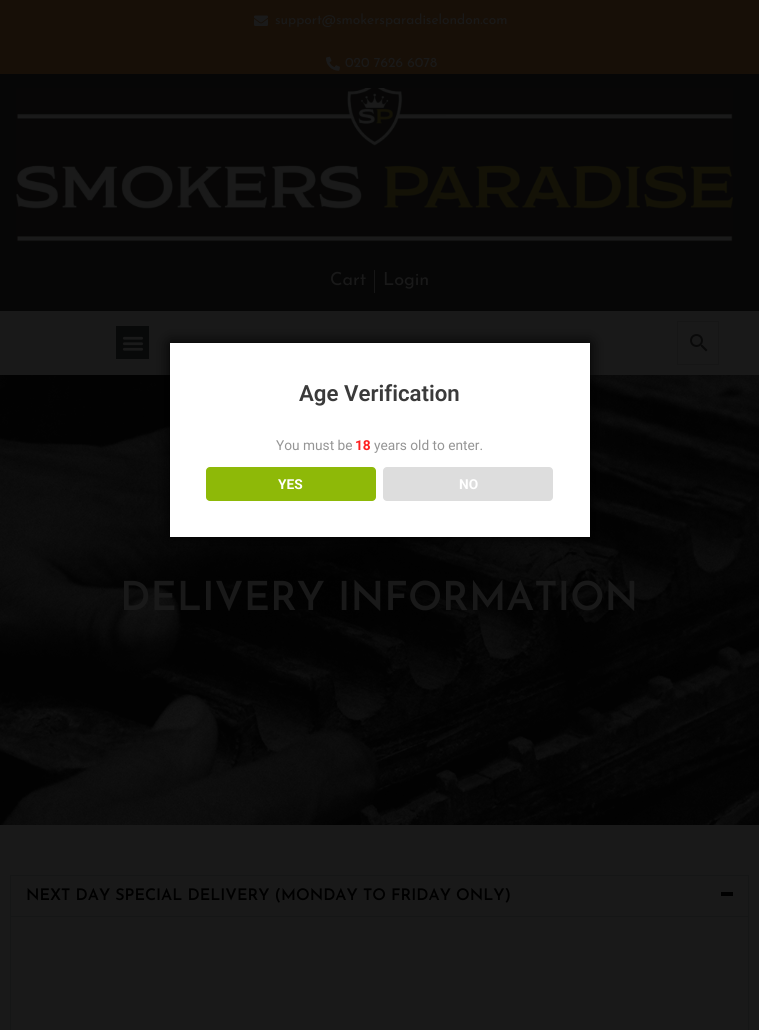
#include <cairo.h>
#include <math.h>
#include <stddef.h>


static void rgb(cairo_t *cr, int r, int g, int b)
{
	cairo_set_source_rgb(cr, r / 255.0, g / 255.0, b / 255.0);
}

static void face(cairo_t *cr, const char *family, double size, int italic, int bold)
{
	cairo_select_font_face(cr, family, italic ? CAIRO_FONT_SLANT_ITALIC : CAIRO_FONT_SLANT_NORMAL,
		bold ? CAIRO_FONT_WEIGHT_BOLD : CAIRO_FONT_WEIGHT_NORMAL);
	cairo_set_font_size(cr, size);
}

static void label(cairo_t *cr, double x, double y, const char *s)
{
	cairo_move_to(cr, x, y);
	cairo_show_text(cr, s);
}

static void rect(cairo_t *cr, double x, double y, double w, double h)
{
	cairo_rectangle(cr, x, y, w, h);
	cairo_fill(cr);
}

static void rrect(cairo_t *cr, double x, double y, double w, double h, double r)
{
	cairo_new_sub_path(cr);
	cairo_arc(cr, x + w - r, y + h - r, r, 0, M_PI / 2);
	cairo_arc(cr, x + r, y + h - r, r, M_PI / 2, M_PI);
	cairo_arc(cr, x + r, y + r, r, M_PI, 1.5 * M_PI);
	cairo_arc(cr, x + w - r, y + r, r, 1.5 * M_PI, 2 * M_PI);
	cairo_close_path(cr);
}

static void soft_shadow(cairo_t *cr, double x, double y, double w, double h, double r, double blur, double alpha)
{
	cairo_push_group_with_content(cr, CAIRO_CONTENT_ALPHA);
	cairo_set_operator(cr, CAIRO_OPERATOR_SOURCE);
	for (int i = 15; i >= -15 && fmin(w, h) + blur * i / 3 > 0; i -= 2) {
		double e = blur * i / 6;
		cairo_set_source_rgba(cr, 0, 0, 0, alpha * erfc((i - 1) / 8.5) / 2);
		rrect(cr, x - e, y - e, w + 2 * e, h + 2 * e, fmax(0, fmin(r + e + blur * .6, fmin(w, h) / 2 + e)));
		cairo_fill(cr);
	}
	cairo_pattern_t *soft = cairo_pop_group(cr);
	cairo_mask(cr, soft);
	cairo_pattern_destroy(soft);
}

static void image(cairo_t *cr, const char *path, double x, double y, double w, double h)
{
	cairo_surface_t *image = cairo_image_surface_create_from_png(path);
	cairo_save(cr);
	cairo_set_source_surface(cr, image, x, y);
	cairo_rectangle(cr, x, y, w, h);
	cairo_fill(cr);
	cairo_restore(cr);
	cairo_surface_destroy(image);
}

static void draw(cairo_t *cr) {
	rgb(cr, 25, 25, 25);
	cairo_paint(cr);
	rgb(cr, 23, 15, 7);
	rect(cr, 0, 0, 759, 74);
	image(cr, "image0.png", 254, 15, 14, 11);
	face(cr, "Josefin Sans", 13.7, 0, 0);
	rgb(cr, 25, 25, 25);
	label(cr, 275, 24, "support@smokersparadiselondon.com");
	image(cr, "image1.png", 326, 56, 14, 15);
	label(cr, 345, 67, "020 7626 6078");
	rgb(cr, 6, 6, 6);
	rect(cr, 0, 74, 759, 237);
	image(cr, "image2.png", 16, 88, 717, 154);
	face(cr, "Josefin Sans", 18, 0, 0);
	rgb(cr, 25, 25, 25);
	label(cr, 330, 285, "Cart");
	rgb(cr, 22, 22, 22);
	rect(cr, 374, 270, 1, 23);
	rgb(cr, 25, 25, 25);
	label(cr, 383, 285, "Login");
	rgb(cr, 8, 9, 9);
	rect(cr, 116, 326, 33, 33);
	image(cr, "image3.png", 122, 336, 22, 15);
	cairo_rectangle(cr, 677.5, 321.5, 41, 43);
	rgb(cr, 22, 22, 22);
	cairo_set_line_width(cr, 1);
	cairo_stroke(cr);
	image(cr, "image4.png", 690, 334, 18, 18);
	image(cr, "image5.png", 0, 375, 759, 450);
	face(cr, "Josefin Sans SemiBold", 40, 0, 0);
	rgb(cr, 25, 25, 25);
	label(cr, 120, 610, "DELIVERY INFORMATION");
	cairo_rectangle(cr, 10.5, 875.5, 738, 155);
	rgb(cr, 21, 22, 22);
	cairo_stroke(cr);
	face(cr, "Josefin Sans SemiBold", 16, 0, 0);
	rgb(cr, 0, 0, 0);
	label(cr, 26, 900, "NEXT DAY SPECIAL DELIVERY (MONDAY TO FRIDAY ONLY)");
	rect(cr, 721, 892, 12, 4);
	rgb(cr, 21, 22, 22);
	rect(cr, 11, 916, 737, 1);
	rgb(cr, 0, 0, 0);
	soft_shadow(cr, 170, 343, 420, 194, 0, 7.5, 1);
	rgb(cr, 255, 255, 255);
	rect(cr, 170, 343, 420, 194);
	face(cr, "Roboto SemiBold", 22.25, 0, 0);
	rgb(cr, 58, 58, 58);
	label(cr, 299, 401, "Age Verification");
	face(cr, "Roboto", 13.7, 0, 0);
	rgb(cr, 149, 149, 149);
	label(cr, 276, 450, "You must be");
	face(cr, "Roboto", 13.7, 0, 1);
	rgb(cr, 255, 31, 31);
	label(cr, 355, 450, "18");
	face(cr, "Roboto", 13.7, 0, 0);
	rgb(cr, 149, 149, 149);
	label(cr, 374, 450, "years old to enter.");
	rgb(cr, 142, 185, 8);
	rrect(cr, 206, 467, 170, 34, 4);
	cairo_fill(cr);
	face(cr, "Roboto", 13.7, 0, 1);
	rgb(cr, 255, 255, 255);
	label(cr, 278, 489, "YES");
	rgb(cr, 221, 221, 221);
	rrect(cr, 383, 467, 170, 34, 4);
	cairo_fill(cr);
	rgb(cr, 255, 255, 255);
	label(cr, 459, 489, "NO");
}

int main(void) {
	cairo_surface_t *surface = cairo_image_surface_create(CAIRO_FORMAT_RGB24, 759, 1030);
	cairo_t *cr = cairo_create(surface);
	cairo_font_options_t *options = cairo_font_options_create();
	cairo_font_options_set_hint_metrics(options, CAIRO_HINT_METRICS_OFF);
	cairo_font_options_set_hint_style(options, CAIRO_HINT_STYLE_NONE);
	cairo_set_font_options(cr, options);
	cairo_set_miter_limit(cr, 4);
	draw(cr);
	cairo_surface_write_to_png(surface, "render.png");
	cairo_font_options_destroy(options);
	cairo_destroy(cr);
	cairo_surface_destroy(surface);
	return 0;
}
